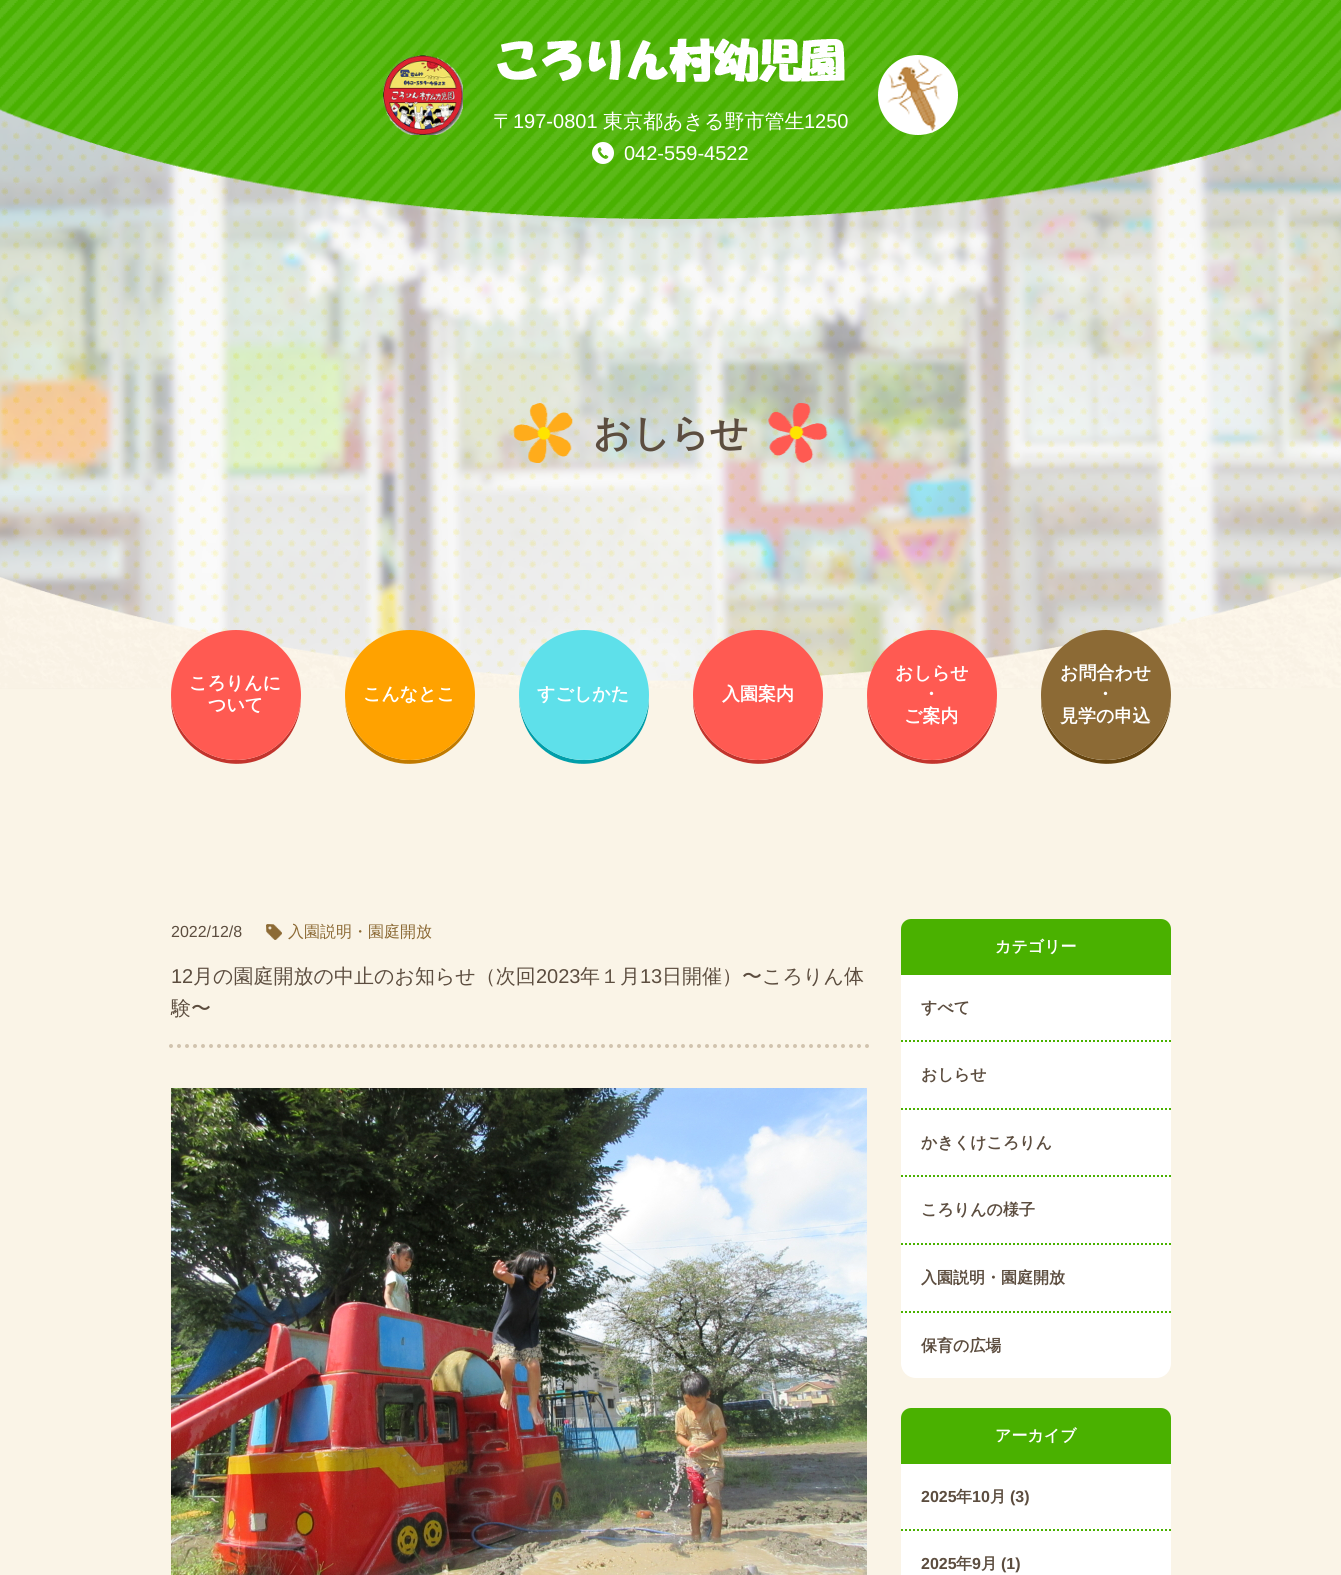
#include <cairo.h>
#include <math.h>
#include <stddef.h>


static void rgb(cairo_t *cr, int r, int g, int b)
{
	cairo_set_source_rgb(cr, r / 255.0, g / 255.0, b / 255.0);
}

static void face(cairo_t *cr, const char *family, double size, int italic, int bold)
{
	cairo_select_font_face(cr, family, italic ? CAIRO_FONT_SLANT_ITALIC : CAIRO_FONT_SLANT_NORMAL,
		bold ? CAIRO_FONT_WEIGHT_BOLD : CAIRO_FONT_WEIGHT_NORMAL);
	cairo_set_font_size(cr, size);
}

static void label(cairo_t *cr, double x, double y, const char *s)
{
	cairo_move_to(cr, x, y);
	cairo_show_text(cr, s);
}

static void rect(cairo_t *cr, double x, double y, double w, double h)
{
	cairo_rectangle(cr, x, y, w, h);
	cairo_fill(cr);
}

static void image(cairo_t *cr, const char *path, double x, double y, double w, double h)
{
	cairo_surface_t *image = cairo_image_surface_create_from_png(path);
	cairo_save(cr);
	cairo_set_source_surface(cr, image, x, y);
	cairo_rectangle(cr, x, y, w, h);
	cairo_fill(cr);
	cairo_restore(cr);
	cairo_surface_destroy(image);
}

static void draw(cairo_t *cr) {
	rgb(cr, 250, 244, 231);
	cairo_paint(cr);
	image(cr, "image5.png", 0, 109, 1341, 580);
	image(cr, "image6.png", 0, 109, 1341, 580);
	image(cr, "image0.png", 0, 0, 1341, 219);
	image(cr, "image1.png", 497, 38, 348, 44);
	image(cr, "image2.png", 383, 55, 80, 80);
	face(cr, "WenQuanYi Zen Hei Medium", 20, 0, 0);
	rgb(cr, 255, 255, 255);
	label(cr, 493, 128, "〒");
	face(cr, "Liberation Sans", 20, 0, 0);
	label(cr, 513, 128, "197-0801");
	face(cr, "WenQuanYi Zen Hei Medium", 20, 0, 0);
	label(cr, 603, 128, "東京都あきる野市管生");
	face(cr, "Liberation Sans", 20, 0, 0);
	label(cr, 804, 128, "1250");
	image(cr, "image3.png", 878, 55, 80, 80);
	image(cr, "image4.png", 592, 142, 22, 22);
	label(cr, 624, 160, "042-559-4522");
	rgb(cr, 194, 52, 45);
	cairo_new_path(cr);
	cairo_move_to(cr, 171, 697);
	cairo_curve_to(cr, 169, 762, 254, 789, 290, 735);
	cairo_curve_to(cr, 297, 724, 301, 711, 301, 697);
	cairo_curve_to(cr, 300, 732, 271, 760, 236, 760);
	cairo_curve_to(cr, 201, 760, 172, 732, 171, 697);
	cairo_close_path(cr);
	cairo_fill(cr);
	image(cr, "image9.png", 0, 577, 1341, 112);
	rgb(cr, 255, 90, 82);
	cairo_arc(cr, 236, 695, 65, 0, 2 * M_PI);
	cairo_fill(cr);
	face(cr, "WenQuanYi Zen Hei", 18, 0, 1);
	rgb(cr, 255, 255, 255);
	label(cr, 189, 689, "ころりんに");
	label(cr, 208, 711, "ついて");
	rgb(cr, 192, 122, 0);
	cairo_new_path(cr);
	cairo_move_to(cr, 345, 697);
	cairo_curve_to(cr, 345, 711, 349, 724, 356, 735);
	cairo_curve_to(cr, 392, 789, 477, 762, 475, 697);
	cairo_curve_to(cr, 474, 732, 445, 760, 410, 760);
	cairo_curve_to(cr, 375, 760, 346, 732, 345, 697);
	cairo_close_path(cr);
	cairo_fill(cr);
	rgb(cr, 255, 162, 0);
	cairo_arc(cr, 410, 695, 65, 0, 2 * M_PI);
	cairo_fill(cr);
	rgb(cr, 255, 255, 255);
	label(cr, 363, 700, "こんなとこ");
	rgb(cr, 0, 158, 170);
	cairo_new_path(cr);
	cairo_move_to(cr, 519, 697);
	cairo_curve_to(cr, 519, 711, 523, 724, 530, 735);
	cairo_curve_to(cr, 566, 789, 651, 762, 649, 697);
	cairo_curve_to(cr, 648, 732, 619, 760, 584, 760);
	cairo_curve_to(cr, 549, 760, 520, 732, 519, 697);
	cairo_close_path(cr);
	cairo_fill(cr);
	rgb(cr, 94, 224, 234);
	cairo_arc(cr, 584, 695, 65, 0, 2 * M_PI);
	cairo_fill(cr);
	rgb(cr, 255, 255, 255);
	label(cr, 537, 700, "すごしかた");
	rgb(cr, 194, 52, 45);
	cairo_new_path(cr);
	cairo_move_to(cr, 693, 697);
	cairo_curve_to(cr, 691, 762, 776, 789, 812, 735);
	cairo_curve_to(cr, 819, 724, 823, 711, 823, 697);
	cairo_curve_to(cr, 822, 732, 793, 760, 758, 760);
	cairo_curve_to(cr, 723, 760, 694, 732, 693, 697);
	cairo_close_path(cr);
	cairo_fill(cr);
	rgb(cr, 255, 90, 82);
	cairo_arc(cr, 758, 695, 65, 0, 2 * M_PI);
	cairo_fill(cr);
	rgb(cr, 255, 255, 255);
	label(cr, 722, 700, "入園案内");
	rgb(cr, 194, 52, 45);
	cairo_new_path(cr);
	cairo_move_to(cr, 867, 697);
	cairo_curve_to(cr, 865, 762, 950, 789, 986, 735);
	cairo_curve_to(cr, 993, 724, 997, 711, 997, 697);
	cairo_curve_to(cr, 996, 732, 967, 760, 932, 760);
	cairo_curve_to(cr, 897, 760, 868, 732, 867, 697);
	cairo_close_path(cr);
	cairo_fill(cr);
	rgb(cr, 255, 90, 82);
	cairo_arc(cr, 932, 695, 65, 0, 2 * M_PI);
	cairo_fill(cr);
	rgb(cr, 255, 255, 255);
	label(cr, 895, 679, "おしらせ");
	label(cr, 922, 700, "・");
	label(cr, 904, 722, "ご案内");
	rgb(cr, 102, 69, 16);
	cairo_new_path(cr);
	cairo_move_to(cr, 1171, 697);
	cairo_curve_to(cr, 1170, 732, 1141, 760, 1106, 760);
	cairo_curve_to(cr, 1071, 760, 1042, 732, 1041, 697);
	cairo_curve_to(cr, 1039, 762, 1124, 789, 1160, 735);
	cairo_curve_to(cr, 1167, 724, 1171, 711, 1171, 697);
	cairo_close_path(cr);
	cairo_fill(cr);
	rgb(cr, 140, 106, 53);
	cairo_arc(cr, 1106, 695, 65, 0, 2 * M_PI);
	cairo_fill(cr);
	rgb(cr, 255, 255, 255);
	label(cr, 1060, 679, "お問合わせ");
	label(cr, 1096, 700, "・");
	label(cr, 1060, 722, "見学の申込");
	image(cr, "image7.png", 513, 403, 60, 60);
	face(cr, "WenQuanYi Zen Hei", 38, 0, 1);
	rgb(cr, 92, 77, 63);
	label(cr, 593, 446, "おしらせ");
	image(cr, "image8.png", 768, 403, 60, 60);
	cairo_new_path(cr);
	cairo_move_to(cr, 171, 1046);
	cairo_line_to(cr, 867, 1046);
	rgb(cr, 209, 195, 174);
	cairo_set_line_width(cr, 4);
	cairo_set_line_cap(cr, CAIRO_LINE_CAP_ROUND);
	cairo_set_dash(cr, (double[]){0, 8}, 2, 0);
	cairo_stroke(cr);
	face(cr, "Liberation Sans", 16, 0, 0);
	rgb(cr, 92, 77, 63);
	label(cr, 171, 937, "2022/12/8");
	image(cr, "image10.png", 266, 924, 16, 16);
	face(cr, "WenQuanYi Zen Hei Medium", 16, 0, 0);
	rgb(cr, 140, 106, 53);
	label(cr, 288, 937, "入園説明・園庭開放");
	face(cr, "Liberation Sans", 20, 0, 0);
	rgb(cr, 92, 77, 63);
	label(cr, 171, 983, "12");
	face(cr, "WenQuanYi Zen Hei Medium", 20, 0, 0);
	label(cr, 193, 983, "月の園庭開放の中止のお知らせ（次回");
	face(cr, "Liberation Sans", 20, 0, 0);
	label(cr, 536, 983, "2023");
	face(cr, "WenQuanYi Zen Hei Medium", 20, 0, 0);
	label(cr, 580, 983, "年１月");
	face(cr, "Liberation Sans", 20, 0, 0);
	label(cr, 640, 983, "13");
	face(cr, "WenQuanYi Zen Hei Medium", 20, 0, 0);
	label(cr, 662, 983, "日開催）〜ころりん体");
	label(cr, 171, 1015, "験〜");
	image(cr, "image11.png", 171, 1088, 696, 487);
	rgb(cr, 74, 177, 0);
	cairo_new_path(cr);
	cairo_move_to(cr, 911, 919);
	cairo_line_to(cr, 1161, 919);
	cairo_curve_to(cr, 1166.5, 919, 1171, 923.5, 1171, 929);
	cairo_line_to(cr, 1171, 975);
	cairo_line_to(cr, 901, 975);
	cairo_line_to(cr, 901, 929);
	cairo_curve_to(cr, 901, 923.5, 905.5, 919, 911, 919);
	cairo_close_path(cr);
	cairo_fill(cr);
	face(cr, "WenQuanYi Zen Hei", 16, 0, 1);
	rgb(cr, 255, 255, 255);
	label(cr, 995, 952, "カテゴリー");
	cairo_new_path(cr);
	cairo_move_to(cr, 901, 975);
	cairo_line_to(cr, 1171, 975);
	cairo_line_to(cr, 1171, 1363);
	cairo_curve_to(cr, 1171, 1371.5, 1164.5, 1378, 1156, 1378);
	cairo_line_to(cr, 916, 1378);
	cairo_curve_to(cr, 907.5, 1378, 901, 1371.5, 901, 1363);
	cairo_close_path(cr);
	cairo_fill(cr);
	rgb(cr, 92, 77, 63);
	label(cr, 921, 1013, "すべて");
	cairo_new_path(cr);
	cairo_move_to(cr, 901, 1041);
	cairo_line_to(cr, 1171, 1041);
	rgb(cr, 74, 177, 0);
	cairo_set_line_width(cr, 2);
	cairo_set_line_cap(cr, CAIRO_LINE_CAP_BUTT);
	cairo_set_dash(cr, (double[]){2, 2}, 2, 0);
	cairo_stroke(cr);
	rgb(cr, 92, 77, 63);
	label(cr, 921, 1080, "おしらせ");
	cairo_new_path(cr);
	cairo_move_to(cr, 901, 1109);
	cairo_line_to(cr, 1171, 1109);
	rgb(cr, 74, 177, 0);
	cairo_stroke(cr);
	rgb(cr, 92, 77, 63);
	label(cr, 921, 1148, "かきくけころりん");
	cairo_new_path(cr);
	cairo_move_to(cr, 901, 1176);
	cairo_line_to(cr, 1171, 1176);
	rgb(cr, 74, 177, 0);
	cairo_stroke(cr);
	rgb(cr, 92, 77, 63);
	label(cr, 921, 1215, "ころりんの様子");
	cairo_new_path(cr);
	cairo_move_to(cr, 901, 1244);
	cairo_line_to(cr, 1171, 1244);
	rgb(cr, 74, 177, 0);
	cairo_stroke(cr);
	rgb(cr, 92, 77, 63);
	label(cr, 921, 1283, "入園説明・園庭開放");
	cairo_new_path(cr);
	cairo_move_to(cr, 901, 1312);
	cairo_line_to(cr, 1171, 1312);
	rgb(cr, 74, 177, 0);
	cairo_stroke(cr);
	rgb(cr, 92, 77, 63);
	label(cr, 921, 1351, "保育の広場");
	rgb(cr, 74, 177, 0);
	cairo_new_path(cr);
	cairo_move_to(cr, 911, 1408);
	cairo_line_to(cr, 1161, 1408);
	cairo_curve_to(cr, 1166.5, 1408, 1171, 1412.5, 1171, 1418);
	cairo_line_to(cr, 1171, 1464);
	cairo_line_to(cr, 901, 1464);
	cairo_line_to(cr, 901, 1418);
	cairo_curve_to(cr, 901, 1412.5, 905.5, 1408, 911, 1408);
	cairo_close_path(cr);
	cairo_fill(cr);
	rgb(cr, 255, 255, 255);
	label(cr, 995, 1441, "アーカイブ");
	rect(cr, 901, 1464, 270, 111);
	face(cr, "Liberation Sans", 16, 0, 1);
	rgb(cr, 92, 77, 63);
	label(cr, 921, 1502, "2025");
	face(cr, "WenQuanYi Zen Hei", 16, 0, 1);
	label(cr, 956, 1502, "年");
	face(cr, "Liberation Sans", 16, 0, 1);
	label(cr, 972, 1502, "10");
	face(cr, "WenQuanYi Zen Hei", 16, 0, 1);
	label(cr, 990, 1502, "月");
	face(cr, "Liberation Sans", 16, 0, 1);
	label(cr, 1010, 1502, "(3)");
	cairo_new_path(cr);
	cairo_move_to(cr, 901, 1530);
	cairo_line_to(cr, 1171, 1530);
	rgb(cr, 74, 177, 0);
	cairo_stroke(cr);
	rgb(cr, 92, 77, 63);
	label(cr, 921, 1569, "2025");
	face(cr, "WenQuanYi Zen Hei", 16, 0, 1);
	label(cr, 956, 1569, "年");
	face(cr, "Liberation Sans", 16, 0, 1);
	label(cr, 972, 1569, "9");
	face(cr, "WenQuanYi Zen Hei", 16, 0, 1);
	label(cr, 981, 1569, "月");
	face(cr, "Liberation Sans", 16, 0, 1);
	label(cr, 1001, 1569, "(1)");
}

int main(void) {
	cairo_surface_t *surface = cairo_image_surface_create(CAIRO_FORMAT_RGB24, 1341, 1575);
	cairo_t *cr = cairo_create(surface);
	cairo_font_options_t *options = cairo_font_options_create();
	cairo_font_options_set_hint_metrics(options, CAIRO_HINT_METRICS_OFF);
	cairo_font_options_set_hint_style(options, CAIRO_HINT_STYLE_NONE);
	cairo_set_font_options(cr, options);
	cairo_set_miter_limit(cr, 4);
	draw(cr);
	cairo_surface_write_to_png(surface, "render.png");
	cairo_font_options_destroy(options);
	cairo_destroy(cr);
	cairo_surface_destroy(surface);
	return 0;
}
